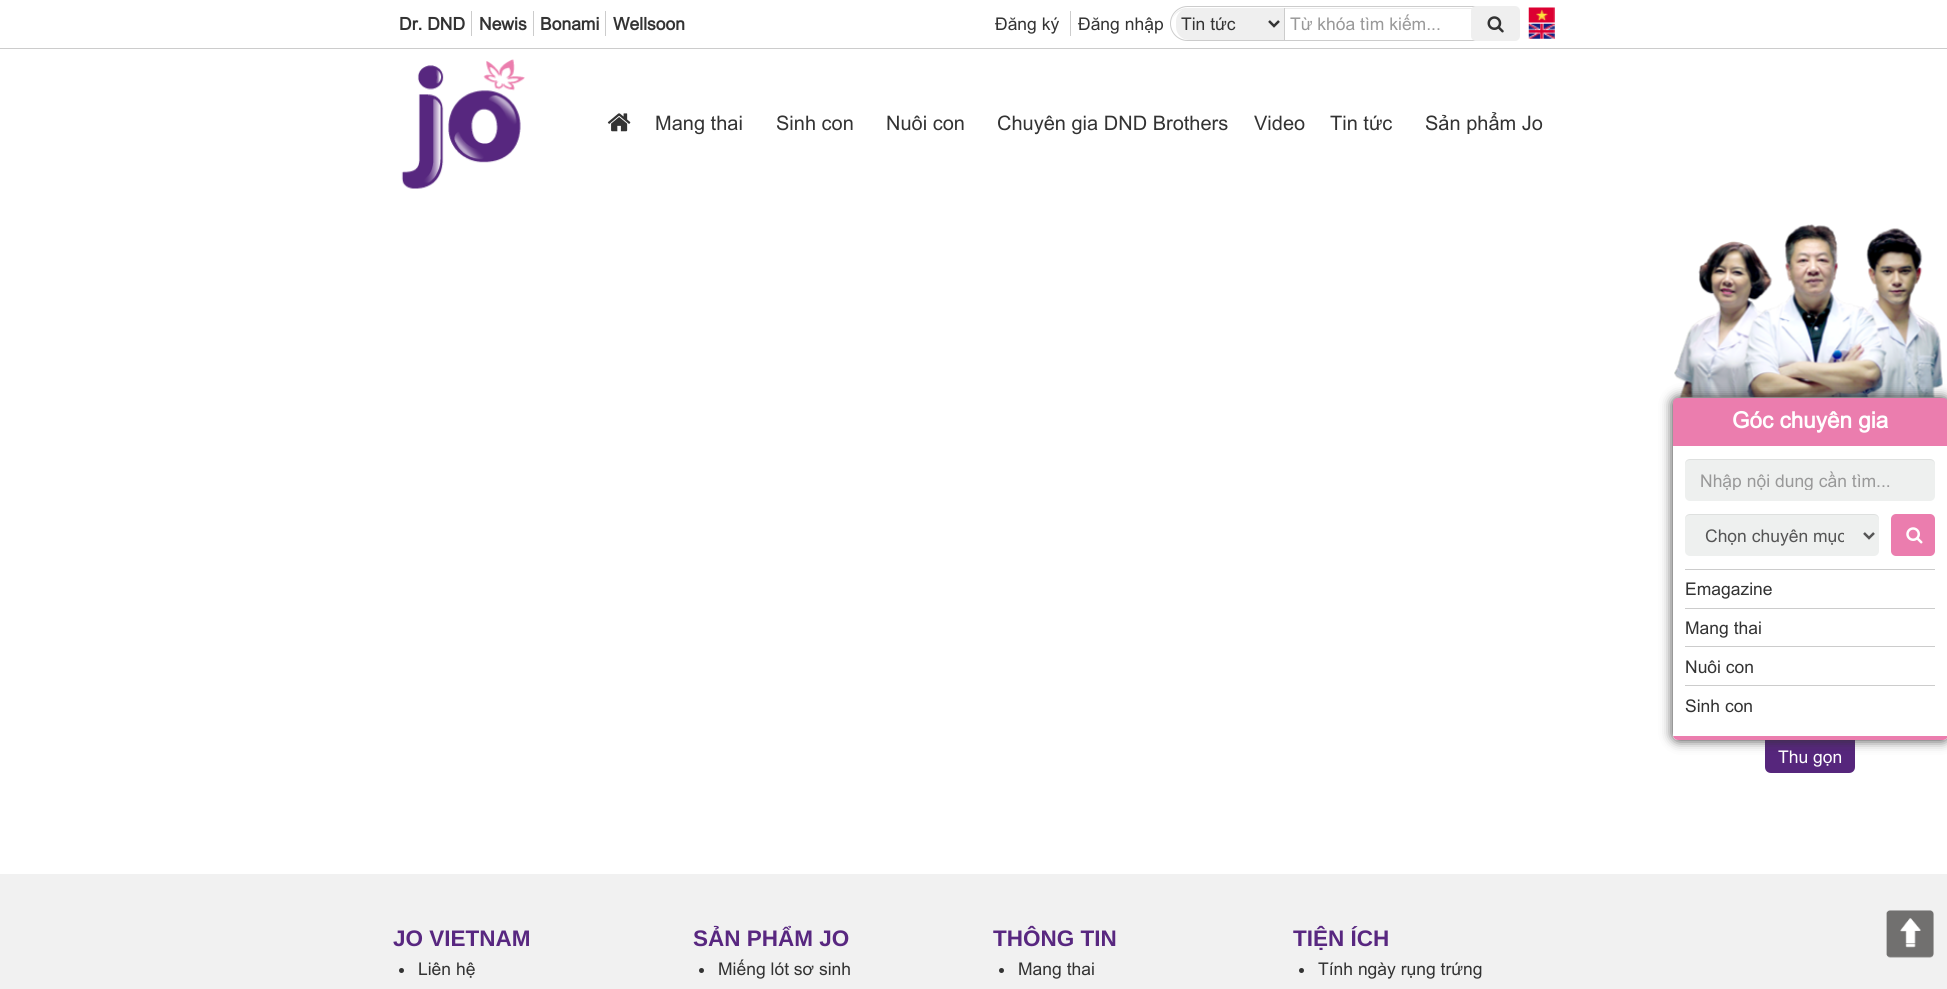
#include <cairo.h>
#include <math.h>
#include <stddef.h>


static void rgb(cairo_t *cr, int r, int g, int b)
{
	cairo_set_source_rgb(cr, r / 255.0, g / 255.0, b / 255.0);
}

static void face(cairo_t *cr, const char *family, double size, int italic, int bold)
{
	cairo_select_font_face(cr, family, italic ? CAIRO_FONT_SLANT_ITALIC : CAIRO_FONT_SLANT_NORMAL,
		bold ? CAIRO_FONT_WEIGHT_BOLD : CAIRO_FONT_WEIGHT_NORMAL);
	cairo_set_font_size(cr, size);
}

static void label(cairo_t *cr, double x, double y, const char *s)
{
	cairo_move_to(cr, x, y);
	cairo_show_text(cr, s);
}

static void rect(cairo_t *cr, double x, double y, double w, double h)
{
	cairo_rectangle(cr, x, y, w, h);
	cairo_fill(cr);
}

static void rrect(cairo_t *cr, double x, double y, double w, double h, double r)
{
	cairo_new_sub_path(cr);
	cairo_arc(cr, x + w - r, y + h - r, r, 0, M_PI / 2);
	cairo_arc(cr, x + r, y + h - r, r, M_PI / 2, M_PI);
	cairo_arc(cr, x + r, y + r, r, M_PI, 1.5 * M_PI);
	cairo_arc(cr, x + w - r, y + r, r, 1.5 * M_PI, 2 * M_PI);
	cairo_close_path(cr);
}

static void soft_shadow(cairo_t *cr, double x, double y, double w, double h, double r, double blur, double alpha)
{
	cairo_push_group_with_content(cr, CAIRO_CONTENT_ALPHA);
	cairo_set_operator(cr, CAIRO_OPERATOR_SOURCE);
	for (int i = 15; i >= -15 && fmin(w, h) + blur * i / 3 > 0; i -= 2) {
		double e = blur * i / 6;
		cairo_set_source_rgba(cr, 0, 0, 0, alpha * erfc((i - 1) / 8.5) / 2);
		rrect(cr, x - e, y - e, w + 2 * e, h + 2 * e, fmax(0, fmin(r + e + blur * .6, fmin(w, h) / 2 + e)));
		cairo_fill(cr);
	}
	cairo_pattern_t *soft = cairo_pop_group(cr);
	cairo_mask(cr, soft);
	cairo_pattern_destroy(soft);
}

static void image(cairo_t *cr, const char *path, double x, double y, double w, double h)
{
	cairo_surface_t *image = cairo_image_surface_create_from_png(path);
	cairo_save(cr);
	cairo_set_source_surface(cr, image, x, y);
	cairo_rectangle(cr, x, y, w, h);
	cairo_fill(cr);
	cairo_restore(cr);
	cairo_surface_destroy(image);
}

static void draw(cairo_t *cr) {
	rgb(cr, 255, 255, 255);
	cairo_paint(cr);
	rgb(cr, 204, 204, 204);
	rect(cr, 0, 48, 1947, 1);
	face(cr, "Arial", 17.5, 0, 1);
	rgb(cr, 51, 51, 51);
	label(cr, 399, 30, "Dr. DND");
	rgb(cr, 204, 204, 204);
	rect(cr, 471, 11, 1, 25);
	rgb(cr, 51, 51, 51);
	label(cr, 479, 30, "Newis");
	rgb(cr, 204, 204, 204);
	rect(cr, 533, 11, 1, 25);
	rgb(cr, 51, 51, 51);
	label(cr, 540, 30, "Bonami");
	rgb(cr, 204, 204, 204);
	rect(cr, 605, 11, 1, 25);
	rgb(cr, 51, 51, 51);
	label(cr, 613, 30, "Wellsoon");
	face(cr, "Arial", 17.5, 0, 0);
	label(cr, 995, 30, "Đăng ký");
	rgb(cr, 204, 204, 204);
	rect(cr, 1070, 11, 1, 25);
	rgb(cr, 51, 51, 51);
	label(cr, 1078, 30, "Đăng nhập");
	rgb(cr, 236, 236, 236);
	cairo_new_path(cr);
	cairo_move_to(cr, 1188, 9);
	cairo_line_to(cr, 1502, 9);
	cairo_curve_to(cr, 1511, 9, 1519, 16, 1519, 25);
	cairo_curve_to(cr, 1519, 16, 1512, 8, 1503, 8);
	cairo_line_to(cr, 1187, 8);
	cairo_curve_to(cr, 1178, 8, 1171, 16, 1171, 25);
	cairo_curve_to(cr, 1171, 16, 1179, 9, 1188, 9);
	cairo_close_path(cr);
	cairo_fill(cr);
	rrect(cr, 1170.5, 6.5, 349, 34, 17);
	rgb(cr, 204, 204, 204);
	cairo_set_line_width(cr, 1);
	cairo_stroke(cr);
	rgb(cr, 239, 239, 239);
	cairo_new_path(cr);
	cairo_move_to(cr, 1189, 8);
	cairo_line_to(cr, 1285, 8);
	cairo_line_to(cr, 1285, 40);
	cairo_line_to(cr, 1189, 40);
	cairo_curve_to(cr, 1182, 40, 1176, 34, 1176, 27);
	cairo_line_to(cr, 1176, 21);
	cairo_curve_to(cr, 1176, 14, 1182, 8, 1189, 8);
	cairo_close_path(cr);
	cairo_fill(cr);
	rgb(cr, 204, 204, 204);
	rect(cr, 1284, 8, 1, 32);
	cairo_new_path(cr);
	cairo_move_to(cr, 1269, 21);
	cairo_line_to(cr, 1274, 26);
	cairo_line_to(cr, 1279, 21);
	rgb(cr, 51, 51, 51);
	cairo_set_line_width(cr, 2.5);
	cairo_stroke(cr);
	label(cr, 1181, 30, "Tin tức");
	rgb(cr, 153, 153, 153);
	label(cr, 1290, 30, "Từ khóa tìm kiếm...");
	rgb(cr, 239, 239, 239);
	rrect(cr, 1471, 6, 49, 35, 5);
	cairo_fill(cr);
	image(cr, "image0.png", 1487, 16, 17, 17);
	image(cr, "image1.png", 1528, 7, 27, 16);
	image(cr, "image2.png", 1528, 23, 27, 16);
	image(cr, "image3.png", 401, 59, 124, 130);
	image(cr, "image4.png", 607, 113, 24, 19);
	face(cr, "Arial", 20, 0, 0);
	rgb(cr, 51, 51, 51);
	label(cr, 655, 130, "Mang thai");
	label(cr, 776, 130, "Sinh con");
	label(cr, 886, 130, "Nuôi con");
	label(cr, 997, 130, "Chuyên gia DND Brothers");
	label(cr, 1254, 130, "Video");
	label(cr, 1330, 130, "Tin tức");
	label(cr, 1425, 130, "Sản phẩm Jo");
	image(cr, "image5.png", 1674, 224, 269, 174);
	rgb(cr, 86, 38, 124);
	cairo_new_path(cr);
	cairo_move_to(cr, 1765, 740);
	cairo_line_to(cr, 1855, 740);
	cairo_line_to(cr, 1855, 767);
	cairo_curve_to(cr, 1855, 770.5, 1852.5, 773, 1849, 773);
	cairo_line_to(cr, 1771, 773);
	cairo_curve_to(cr, 1767.5, 773, 1765, 770.5, 1765, 767);
	cairo_close_path(cr);
	cairo_fill(cr);
	rgb(cr, 51, 51, 51);
	soft_shadow(cr, 1673, 398, 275, 342, 5, 6, 1);
	rgb(cr, 235, 125, 174);
	cairo_new_path(cr);
	cairo_move_to(cr, 1678, 398);
	cairo_line_to(cr, 1943, 398);
	cairo_curve_to(cr, 1946, 398, 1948, 400, 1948, 403);
	cairo_line_to(cr, 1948, 446);
	cairo_line_to(cr, 1673, 446);
	cairo_line_to(cr, 1673, 403);
	cairo_curve_to(cr, 1673, 400, 1675, 398, 1678, 398);
	cairo_close_path(cr);
	cairo_fill(cr);
	face(cr, "Arial", 22.5, 0, 1);
	rgb(cr, 255, 255, 255);
	label(cr, 1732, 428, "Góc chuyên gia");
	cairo_new_path(cr);
	cairo_move_to(cr, 1673, 446);
	cairo_line_to(cr, 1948, 446);
	cairo_line_to(cr, 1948, 735);
	cairo_curve_to(cr, 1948, 738, 1946, 740, 1943, 740);
	cairo_line_to(cr, 1678, 740);
	cairo_curve_to(cr, 1675, 740, 1673, 738, 1673, 735);
	cairo_close_path(cr);
	cairo_fill(cr);
	cairo_save(cr);
	rrect(cr, 1673, 398, 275, 342, 5);
	cairo_clip(cr);
	rgb(cr, 235, 125, 174);
	rect(cr, 1673, 736, 274, 4);
	cairo_restore(cr);
	rgb(cr, 238, 240, 239);
	rrect(cr, 1685, 459, 250, 42, 5);
	cairo_fill(cr);
	cairo_set_source_rgba(cr, 0, 0, 0, 0.07);
	cairo_new_path(cr);
	cairo_move_to(cr, 1690, 460);
	cairo_line_to(cr, 1930, 460);
	cairo_curve_to(cr, 1933, 460, 1935, 462, 1935, 465);
	cairo_line_to(cr, 1935, 464);
	cairo_curve_to(cr, 1935, 461, 1933, 459, 1930, 459);
	cairo_line_to(cr, 1690, 459);
	cairo_curve_to(cr, 1687, 459, 1685, 461, 1685, 464);
	cairo_line_to(cr, 1685, 465);
	cairo_curve_to(cr, 1685, 462, 1687, 460, 1690, 460);
	cairo_close_path(cr);
	cairo_fill(cr);
	cairo_save(cr);
	cairo_rectangle(cr, 1700, 470, 220, 20);
	cairo_clip(cr);
	face(cr, "Arial", 17.5, 0, 0);
	rgb(cr, 153, 153, 153);
	label(cr, 1700, 487, "Nhập nội dung cần tìm...");
	cairo_restore(cr);
	rgb(cr, 238, 240, 239);
	rrect(cr, 1685, 514, 194, 42, 5);
	cairo_fill(cr);
	cairo_set_source_rgba(cr, 0, 0, 0, 0.07);
	cairo_new_path(cr);
	cairo_move_to(cr, 1690, 515);
	cairo_line_to(cr, 1874, 515);
	cairo_curve_to(cr, 1877, 515, 1879, 517, 1879, 520);
	cairo_line_to(cr, 1879, 519);
	cairo_curve_to(cr, 1879, 516, 1877, 514, 1874, 514);
	cairo_line_to(cr, 1690, 514);
	cairo_curve_to(cr, 1687, 514, 1685, 516, 1685, 519);
	cairo_line_to(cr, 1685, 520);
	cairo_curve_to(cr, 1685, 517, 1687, 515, 1690, 515);
	cairo_close_path(cr);
	cairo_fill(cr);
	cairo_new_path(cr);
	cairo_move_to(cr, 1864, 533);
	cairo_line_to(cr, 1869, 538);
	cairo_line_to(cr, 1874, 533);
	rgb(cr, 85, 85, 85);
	cairo_stroke(cr);
	cairo_save(cr);
	cairo_rectangle(cr, 1705, 524, 139, 22);
	cairo_clip(cr);
	face(cr, "Arial", 17.5, 0, 0);
	label(cr, 1705, 542, "Chọn chuyên mục");
	cairo_restore(cr);
	rgb(cr, 235, 125, 174);
	rrect(cr, 1891, 514, 44, 42, 5);
	cairo_fill(cr);
	image(cr, "image6.png", 1906, 527, 17, 17);
	rgb(cr, 204, 204, 204);
	rect(cr, 1685, 569, 250, 1);
	face(cr, "Arial", 17.5, 0, 0);
	rgb(cr, 51, 51, 51);
	label(cr, 1685, 595, "Emagazine");
	rgb(cr, 204, 204, 204);
	rect(cr, 1685, 608, 250, 1);
	rgb(cr, 51, 51, 51);
	label(cr, 1685, 634, "Mang thai");
	rgb(cr, 204, 204, 204);
	rect(cr, 1685, 646, 250, 1);
	rgb(cr, 51, 51, 51);
	label(cr, 1685, 673, "Nuôi con");
	rgb(cr, 204, 204, 204);
	rect(cr, 1685, 685, 250, 1);
	rgb(cr, 51, 51, 51);
	label(cr, 1685, 712, "Sinh con");
	rgb(cr, 255, 255, 255);
	label(cr, 1778, 763, "Thu gọn");
	rgb(cr, 241, 241, 241);
	rect(cr, 0, 874, 1947, 115);
	face(cr, "Liberation Sans", 22.5, 0, 1);
	rgb(cr, 88, 39, 128);
	label(cr, 393, 946, "JO VIETNAM");
	rgb(cr, 51, 51, 51);
	cairo_new_path(cr);
	cairo_arc(cr, 401.5, 970.5, 2.5, 0, 2 * M_PI);
	cairo_fill(cr);
	face(cr, "Arial", 17.5, 0, 0);
	label(cr, 418, 975, "Liên hệ");
	face(cr, "Liberation Sans", 22.5, 0, 1);
	rgb(cr, 88, 39, 128);
	label(cr, 693, 946, "SẢN PHẨM JO");
	rgb(cr, 51, 51, 51);
	cairo_new_path(cr);
	cairo_arc(cr, 701.5, 970.5, 2.5, 0, 2 * M_PI);
	cairo_fill(cr);
	face(cr, "Arial", 17.5, 0, 0);
	label(cr, 718, 975, "Miếng lót sơ sinh");
	face(cr, "Liberation Sans", 22.5, 0, 1);
	rgb(cr, 88, 39, 128);
	label(cr, 993, 946, "THÔNG TIN");
	rgb(cr, 51, 51, 51);
	cairo_new_path(cr);
	cairo_arc(cr, 1001.5, 970.5, 2.5, 0, 2 * M_PI);
	cairo_fill(cr);
	face(cr, "Arial", 17.5, 0, 0);
	label(cr, 1018, 975, "Mang thai");
	face(cr, "Liberation Sans", 22.5, 0, 1);
	rgb(cr, 88, 39, 128);
	label(cr, 1293, 946, "TIỆN ÍCH");
	rgb(cr, 51, 51, 51);
	cairo_new_path(cr);
	cairo_arc(cr, 1301.5, 970.5, 2.5, 0, 2 * M_PI);
	cairo_fill(cr);
	face(cr, "Arial", 17.5, 0, 0);
	label(cr, 1318, 975, "Tính ngày rụng trứng");
	image(cr, "image7.png", 1886, 910, 48, 48);
}

int main(void) {
	cairo_surface_t *surface = cairo_image_surface_create(CAIRO_FORMAT_RGB24, 1947, 989);
	cairo_t *cr = cairo_create(surface);
	cairo_font_options_t *options = cairo_font_options_create();
	cairo_font_options_set_hint_metrics(options, CAIRO_HINT_METRICS_OFF);
	cairo_font_options_set_hint_style(options, CAIRO_HINT_STYLE_NONE);
	cairo_set_font_options(cr, options);
	cairo_set_miter_limit(cr, 4);
	draw(cr);
	cairo_surface_write_to_png(surface, "render.png");
	cairo_font_options_destroy(options);
	cairo_destroy(cr);
	cairo_surface_destroy(surface);
	return 0;
}
